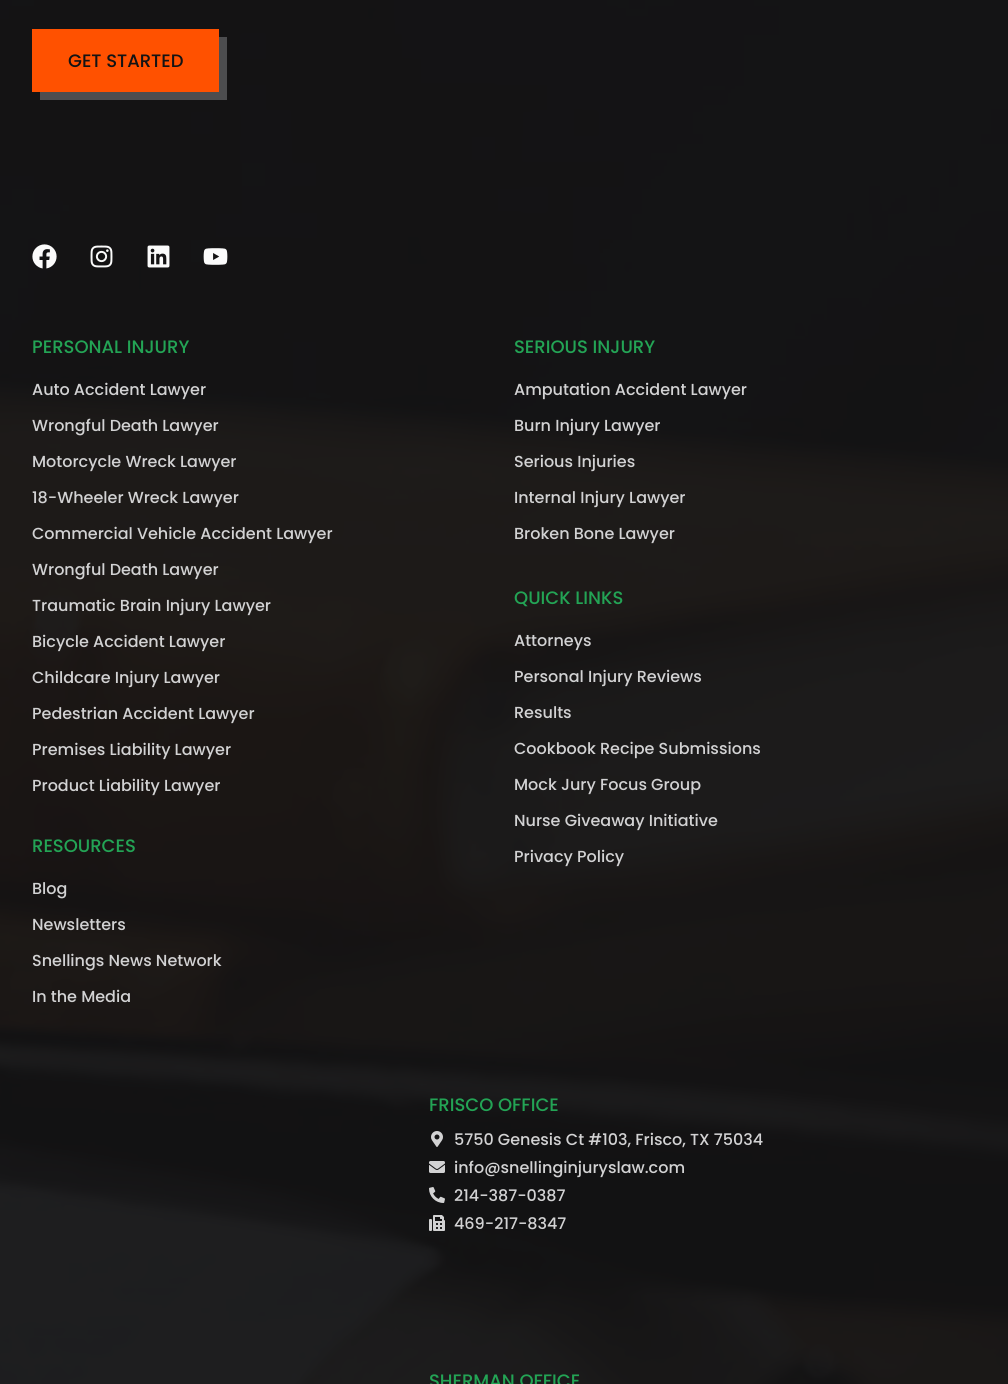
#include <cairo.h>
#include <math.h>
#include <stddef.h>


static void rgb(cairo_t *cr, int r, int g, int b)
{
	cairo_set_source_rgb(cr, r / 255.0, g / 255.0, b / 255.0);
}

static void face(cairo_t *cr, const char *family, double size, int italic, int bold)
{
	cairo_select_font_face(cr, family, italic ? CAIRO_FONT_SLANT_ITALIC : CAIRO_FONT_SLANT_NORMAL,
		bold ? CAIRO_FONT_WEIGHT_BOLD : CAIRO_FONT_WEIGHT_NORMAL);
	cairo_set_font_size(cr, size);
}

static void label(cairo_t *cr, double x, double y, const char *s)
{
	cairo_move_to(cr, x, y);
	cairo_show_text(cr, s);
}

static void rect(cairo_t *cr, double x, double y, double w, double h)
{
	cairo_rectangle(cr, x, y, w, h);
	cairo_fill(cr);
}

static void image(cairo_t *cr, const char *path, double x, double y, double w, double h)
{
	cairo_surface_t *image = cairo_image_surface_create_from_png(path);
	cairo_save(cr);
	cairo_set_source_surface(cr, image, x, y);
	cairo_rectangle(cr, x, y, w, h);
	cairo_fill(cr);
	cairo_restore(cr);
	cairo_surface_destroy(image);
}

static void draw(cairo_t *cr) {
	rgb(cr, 255, 255, 255);
	cairo_paint(cr);
	image(cr, "image0.png", 0, 0, 1008, 1384);
	rgb(cr, 77, 77, 79);
	cairo_new_path(cr);
	cairo_move_to(cr, 40, 92);
	cairo_line_to(cr, 40, 100);
	cairo_line_to(cr, 227, 100);
	cairo_line_to(cr, 227, 37);
	cairo_line_to(cr, 219, 37);
	cairo_line_to(cr, 219, 92);
	cairo_close_path(cr);
	cairo_fill(cr);
	rgb(cr, 255, 81, 0);
	rect(cr, 32, 29, 187, 63);
	face(cr, "Poppins Medium", 18, 0, 0);
	rgb(cr, 19, 19, 20);
	label(cr, 68, 67, "GET STARTED");
	image(cr, "image1.png", 32, 244, 25, 25);
	image(cr, "image2.png", 90, 245, 23, 23);
	image(cr, "image3.png", 147, 245, 23, 23);
	image(cr, "image4.png", 203, 248, 25, 17);
	rgb(cr, 35, 164, 85);
	label(cr, 32, 353, "PERSONAL INJURY");
	face(cr, "Poppins Medium", 16, 0, 0);
	rgb(cr, 210, 210, 211);
	label(cr, 32, 395, "Auto Accident Lawyer");
	label(cr, 32, 431, "Wrongful Death Lawyer");
	label(cr, 32, 467, "Motorcycle Wreck Lawyer");
	label(cr, 32, 503, "18-Wheeler Wreck Lawyer");
	label(cr, 32, 539, "Commercial Vehicle Accident Lawyer");
	label(cr, 32, 575, "Wrongful Death Lawyer");
	label(cr, 32, 611, "Traumatic Brain Injury Lawyer");
	label(cr, 32, 647, "Bicycle Accident Lawyer");
	label(cr, 32, 683, "Childcare Injury Lawyer");
	label(cr, 32, 719, "Pedestrian Accident Lawyer");
	label(cr, 32, 755, "Premises Liability Lawyer");
	label(cr, 32, 791, "Product Liability Lawyer");
	face(cr, "Poppins Medium", 18, 0, 0);
	rgb(cr, 35, 164, 85);
	label(cr, 514, 353, "SERIOUS INJURY");
	face(cr, "Poppins Medium", 16, 0, 0);
	rgb(cr, 210, 210, 211);
	label(cr, 514, 395, "Amputation Accident Lawyer");
	label(cr, 514, 431, "Burn Injury Lawyer");
	label(cr, 514, 467, "Serious Injuries");
	label(cr, 514, 503, "Internal Injury Lawyer");
	label(cr, 514, 539, "Broken Bone Lawyer");
	face(cr, "Poppins Medium", 18, 0, 0);
	rgb(cr, 35, 164, 85);
	label(cr, 514, 604, "QUICK LINKS");
	face(cr, "Poppins Medium", 16, 0, 0);
	rgb(cr, 210, 210, 211);
	label(cr, 514, 646, "Attorneys");
	label(cr, 514, 682, "Personal Injury Reviews");
	label(cr, 514, 718, "Results");
	label(cr, 514, 754, "Cookbook Recipe Submissions");
	label(cr, 514, 790, "Mock Jury Focus Group");
	label(cr, 514, 826, "Nurse Giveaway Initiative");
	label(cr, 514, 862, "Privacy Policy");
	face(cr, "Poppins Medium", 18, 0, 0);
	rgb(cr, 35, 164, 85);
	label(cr, 32, 852, "RESOURCES");
	face(cr, "Poppins Medium", 16, 0, 0);
	rgb(cr, 210, 210, 211);
	label(cr, 32, 894, "Blog");
	label(cr, 32, 930, "Newsletters");
	label(cr, 32, 966, "Snellings News Network");
	label(cr, 32, 1002, "In the Media");
	face(cr, "Poppins Medium", 18, 0, 0);
	rgb(cr, 35, 164, 85);
	label(cr, 429, 1111, "FRISCO OFFICE");
	image(cr, "image5.png", 431, 1131, 12, 16);
	face(cr, "Poppins Medium", 16, 0, 0);
	rgb(cr, 210, 210, 211);
	label(cr, 454, 1145, "5750 Genesis Ct #103, Frisco, TX 75034");
	image(cr, "image6.png", 429, 1161, 16, 12);
	label(cr, 454, 1173, "info@snellinginjuryslaw.com");
	image(cr, "image7.png", 429, 1187, 16, 16);
	label(cr, 454, 1201, "214-387-0387");
	image(cr, "image8.png", 429, 1215, 16, 16);
	label(cr, 454, 1229, "469-217-8347");
	face(cr, "Poppins Medium", 18, 0, 0);
	rgb(cr, 35, 164, 85);
	label(cr, 429, 1387, "SHERMAN OFFICE");
}

int main(void) {
	cairo_surface_t *surface = cairo_image_surface_create(CAIRO_FORMAT_RGB24, 1008, 1384);
	cairo_t *cr = cairo_create(surface);
	cairo_font_options_t *options = cairo_font_options_create();
	cairo_font_options_set_hint_metrics(options, CAIRO_HINT_METRICS_OFF);
	cairo_font_options_set_hint_style(options, CAIRO_HINT_STYLE_NONE);
	cairo_set_font_options(cr, options);
	cairo_set_miter_limit(cr, 4);
	draw(cr);
	cairo_surface_write_to_png(surface, "render.png");
	cairo_font_options_destroy(options);
	cairo_destroy(cr);
	cairo_surface_destroy(surface);
	return 0;
}
